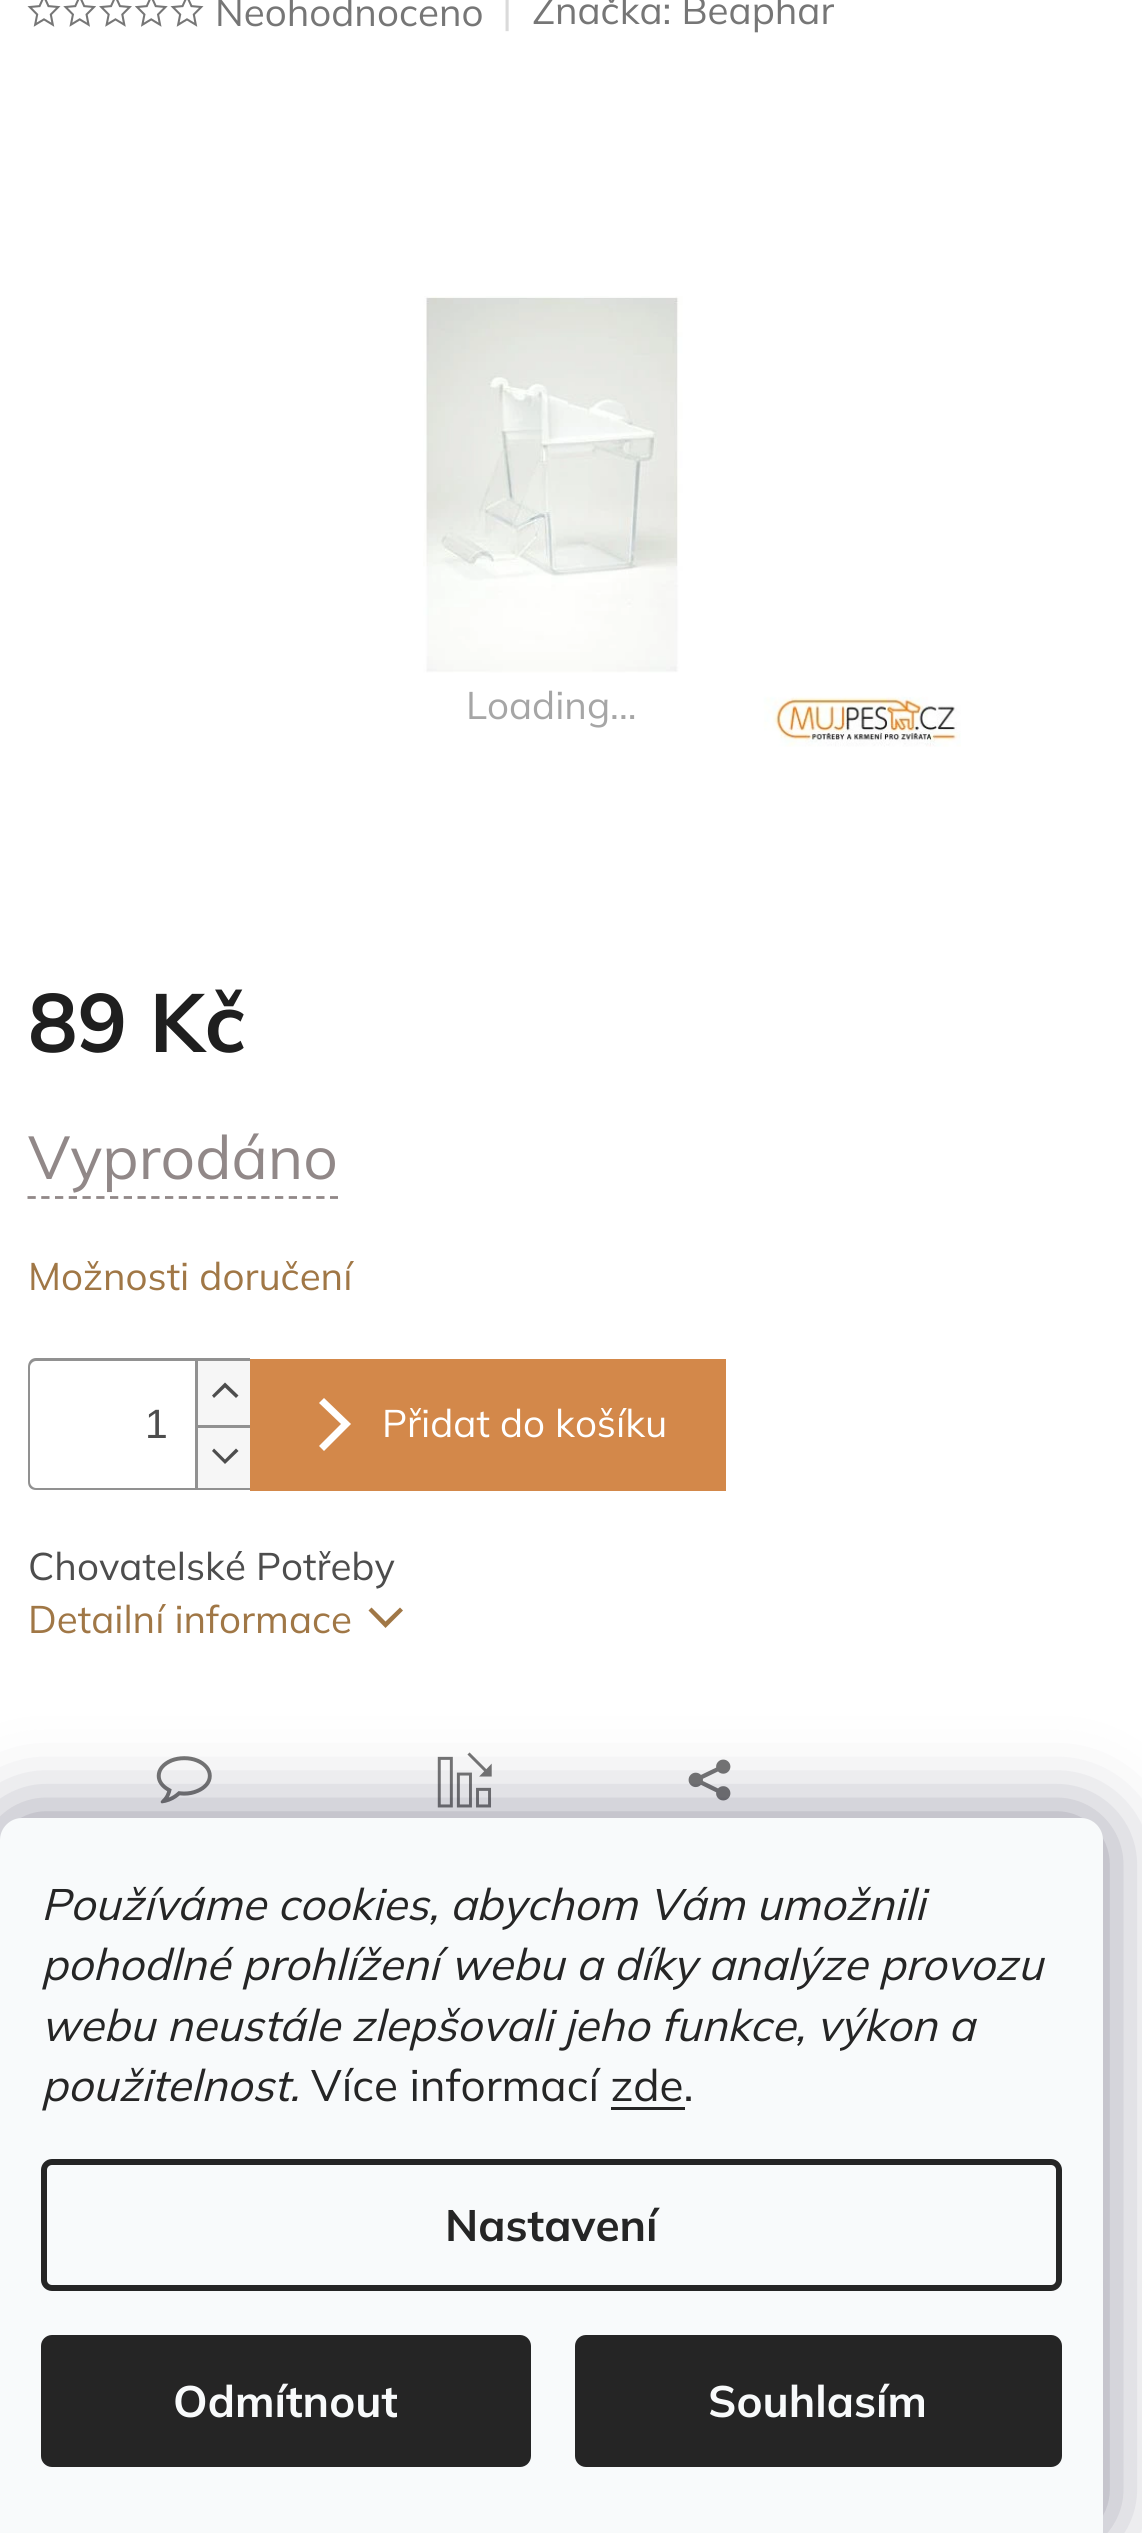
#include <cairo.h>
#include <math.h>
#include <stddef.h>


static void rgb(cairo_t *cr, int r, int g, int b)
{
	cairo_set_source_rgb(cr, r / 255.0, g / 255.0, b / 255.0);
}

static void face(cairo_t *cr, const char *family, double size, int italic, int bold)
{
	cairo_select_font_face(cr, family, italic ? CAIRO_FONT_SLANT_ITALIC : CAIRO_FONT_SLANT_NORMAL,
		bold ? CAIRO_FONT_WEIGHT_BOLD : CAIRO_FONT_WEIGHT_NORMAL);
	cairo_set_font_size(cr, size);
}

static void label(cairo_t *cr, double x, double y, const char *s)
{
	cairo_move_to(cr, x, y);
	cairo_show_text(cr, s);
}

static void rect(cairo_t *cr, double x, double y, double w, double h)
{
	cairo_rectangle(cr, x, y, w, h);
	cairo_fill(cr);
}

static void rrect(cairo_t *cr, double x, double y, double w, double h, double r)
{
	cairo_new_sub_path(cr);
	cairo_arc(cr, x + w - r, y + h - r, r, 0, M_PI / 2);
	cairo_arc(cr, x + r, y + h - r, r, M_PI / 2, M_PI);
	cairo_arc(cr, x + r, y + r, r, M_PI, 1.5 * M_PI);
	cairo_arc(cr, x + w - r, y + r, r, 1.5 * M_PI, 2 * M_PI);
	cairo_close_path(cr);
}

static void soft_shadow(cairo_t *cr, double x, double y, double w, double h, double r, double blur, double alpha)
{
	cairo_push_group_with_content(cr, CAIRO_CONTENT_ALPHA);
	cairo_set_operator(cr, CAIRO_OPERATOR_SOURCE);
	for (int i = 15; i >= -15 && fmin(w, h) + blur * i / 3 > 0; i -= 2) {
		double e = blur * i / 6;
		cairo_set_source_rgba(cr, 0, 0, 0, alpha * erfc((i - 1) / 8.5) / 2);
		rrect(cr, x - e, y - e, w + 2 * e, h + 2 * e, fmax(0, fmin(r + e + blur * .6, fmin(w, h) / 2 + e)));
		cairo_fill(cr);
	}
	cairo_pattern_t *soft = cairo_pop_group(cr);
	cairo_mask(cr, soft);
	cairo_pattern_destroy(soft);
}

static void image(cairo_t *cr, const char *path, double x, double y, double w, double h)
{
	cairo_surface_t *image = cairo_image_surface_create_from_png(path);
	cairo_save(cr);
	cairo_set_source_surface(cr, image, x, y);
	cairo_rectangle(cr, x, y, w, h);
	cairo_fill(cr);
	cairo_restore(cr);
	cairo_surface_destroy(image);
}

static void draw(cairo_t *cr) {
	rgb(cr, 255, 255, 255);
	cairo_paint(cr);
	image(cr, "image0.png", 27, 0, 34, 27);
	image(cr, "image1.png", 63, 0, 33, 27);
	image(cr, "image2.png", 99, 0, 33, 27);
	image(cr, "image3.png", 135, 0, 33, 27);
	image(cr, "image0.png", 170, 0, 34, 27);
	face(cr, "Mulish", 38.5, 0, 0);
	rgb(cr, 118, 118, 118);
	label(cr, 215, 26, "Neohodnoceno");
	rgb(cr, 218, 218, 218);
	label(cr, 502, 24, "|");
	rgb(cr, 118, 118, 118);
	label(cr, 532, 24, "Značka: Beaphar");
	image(cr, "image4.png", 423, 296, 538, 451);
	rgb(cr, 166, 166, 166);
	label(cr, 466, 719, "Loading...");
	face(cr, "Mulish", 82.5, 0, 1);
	rgb(cr, 31, 31, 31);
	label(cr, 28, 1052, "89 Kč");
	face(cr, "Mulish", 60.5, 0, 0);
	rgb(cr, 145, 136, 136);
	label(cr, 28, 1179, "Vyprodáno");
	cairo_new_path(cr);
	cairo_move_to(cr, 27.5, 1197.5);
	cairo_line_to(cr, 338, 1197.5);
	cairo_set_line_width(cr, 2.8);
	cairo_set_dash(cr, (double[]){8.25, 5.5}, 2, 0);
	cairo_stroke(cr);
	face(cr, "Mulish", 38.5, 0, 0);
	rgb(cr, 160, 119, 70);
	label(cr, 28, 1290, "Možnosti doručení");
	rgb(cr, 145, 145, 145);
	cairo_set_fill_rule(cr, CAIRO_FILL_RULE_EVEN_ODD);
	cairo_new_path(cr);
	cairo_move_to(cr, 36, 1358);
	cairo_line_to(cr, 250, 1358);
	cairo_line_to(cr, 250, 1490);
	cairo_line_to(cr, 36, 1490);
	cairo_curve_to(cr, 31, 1490, 28, 1487, 28, 1482);
	cairo_line_to(cr, 28, 1367);
	cairo_curve_to(cr, 28, 1362, 31, 1358, 36, 1358);
	cairo_close_path(cr);
	cairo_move_to(cr, 36, 1361);
	cairo_line_to(cr, 250, 1361);
	cairo_line_to(cr, 250, 1488);
	cairo_line_to(cr, 36, 1488);
	cairo_curve_to(cr, 33, 1488, 30, 1485, 30, 1482);
	cairo_line_to(cr, 30, 1367);
	cairo_curve_to(cr, 30, 1364, 33, 1361, 36, 1361);
	cairo_close_path(cr);
	cairo_fill(cr);
	face(cr, "Liberation Sans", 41, 0, 0);
	rgb(cr, 77, 77, 77);
	label(cr, 145, 1438, "1");
	rgb(cr, 246, 246, 246);
	rect(cr, 198, 1361, 52, 64);
	rgb(cr, 145, 145, 145);
	rect(cr, 195, 1361, 3, 64);
	rgb(cr, 77, 77, 77);
	cairo_set_fill_rule(cr, CAIRO_FILL_RULE_WINDING);
	cairo_new_path(cr);
	cairo_move_to(cr, 212, 1395.5);
	cairo_line_to(cr, 214, 1398);
	cairo_line_to(cr, 225, 1387.5);
	cairo_line_to(cr, 236, 1398);
	cairo_line_to(cr, 238.5, 1395.5);
	cairo_line_to(cr, 225, 1382.5);
	cairo_close_path(cr);
	cairo_fill(cr);
	rgb(cr, 246, 246, 246);
	rect(cr, 198, 1428, 52, 60);
	rgb(cr, 145, 145, 145);
	rect(cr, 195, 1425, 55, 3);
	rect(cr, 195, 1425, 3, 63);
	rgb(cr, 77, 77, 77);
	cairo_new_path(cr);
	cairo_move_to(cr, 212, 1451);
	cairo_line_to(cr, 214, 1448.5);
	cairo_line_to(cr, 225, 1459.5);
	cairo_line_to(cr, 236, 1448.5);
	cairo_line_to(cr, 238.5, 1451);
	cairo_line_to(cr, 225, 1464);
	cairo_close_path(cr);
	cairo_fill(cr);
	rgb(cr, 211, 136, 74);
	rect(cr, 250, 1359, 476, 132);
	rgb(cr, 255, 255, 255);
	cairo_new_path(cr);
	cairo_move_to(cr, 324, 1451);
	cairo_line_to(cr, 319, 1446);
	cairo_line_to(cr, 341, 1424);
	cairo_line_to(cr, 319, 1403);
	cairo_line_to(cr, 324, 1398);
	cairo_line_to(cr, 351, 1424);
	cairo_close_path(cr);
	cairo_fill(cr);
	face(cr, "Mulish", 38.5, 0, 0);
	label(cr, 382, 1437, "Přidat do košíku");
	rgb(cr, 77, 77, 77);
	label(cr, 28, 1580, "Chovatelské Potřeby");
	rgb(cr, 160, 119, 70);
	label(cr, 28, 1633, "Detailní informace");
	cairo_new_path(cr);
	cairo_move_to(cr, 368.5, 1610.5);
	cairo_line_to(cr, 371.5, 1607.5);
	cairo_line_to(cr, 385.5, 1621.5);
	cairo_line_to(cr, 400, 1607.5);
	cairo_line_to(cr, 403, 1610.5);
	cairo_line_to(cr, 385.5, 1628);
	cairo_close_path(cr);
	cairo_fill(cr);
	image(cr, "image5.png", 156, 1756, 56, 48);
	image(cr, "image6.png", 437, 1752, 55, 56);
	image(cr, "image7.png", 688, 1759, 43, 42);
	rgb(cr, 27, 25, 57);
	soft_shadow(cr, 0, 1818, 1103, 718, 22, 41, 0.5);
	rgb(cr, 248, 250, 251);
	cairo_new_path(cr);
	cairo_move_to(cr, 22, 1818);
	cairo_line_to(cr, 1081, 1818);
	cairo_curve_to(cr, 1093, 1818, 1103, 1828, 1103, 1840);
	cairo_line_to(cr, 1103, 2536);
	cairo_line_to(cr, 0, 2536);
	cairo_line_to(cr, 0, 1840);
	cairo_curve_to(cr, 0, 1828, 10, 1818, 22, 1818);
	cairo_close_path(cr);
	cairo_fill(cr);
	face(cr, "Mulish", 44, 1, 0);
	rgb(cr, 37, 37, 37);
	label(cr, 41, 1920, "Používáme cookies, abychom Vám umožnili");
	label(cr, 41, 1980, "pohodlné prohlížení webu a díky analýze provozu");
	label(cr, 41, 2041, "webu neustále zlepšovali jeho funkce, výkon a");
	label(cr, 41, 2101, "použitelnost.");
	face(cr, "Mulish", 44, 0, 0);
	label(cr, 311, 2101, "Více informací zde.");
	rect(cr, 611, 2107, 74, 3);
	rrect(cr, 44, 2162, 1015, 126, 8);
	cairo_set_line_width(cr, 6);
	cairo_set_dash(cr, NULL, 0, 0);
	cairo_stroke(cr);
	face(cr, "Mulish", 44, 0, 1);
	label(cr, 445, 2241, "Nastavení");
	rrect(cr, 41, 2335, 490, 132, 11);
	cairo_fill(cr);
	rgb(cr, 248, 250, 251);
	label(cr, 173, 2417, "Odmítnout");
	rgb(cr, 37, 37, 37);
	rrect(cr, 575, 2335, 487, 132, 11);
	cairo_fill(cr);
	rgb(cr, 248, 250, 251);
	label(cr, 708, 2417, "Souhlasím");
}

int main(void) {
	cairo_surface_t *surface = cairo_image_surface_create(CAIRO_FORMAT_RGB24, 1142, 2533);
	cairo_t *cr = cairo_create(surface);
	cairo_font_options_t *options = cairo_font_options_create();
	cairo_font_options_set_hint_metrics(options, CAIRO_HINT_METRICS_OFF);
	cairo_font_options_set_hint_style(options, CAIRO_HINT_STYLE_NONE);
	cairo_set_font_options(cr, options);
	cairo_set_miter_limit(cr, 4);
	draw(cr);
	cairo_surface_write_to_png(surface, "render.png");
	cairo_font_options_destroy(options);
	cairo_destroy(cr);
	cairo_surface_destroy(surface);
	return 0;
}
